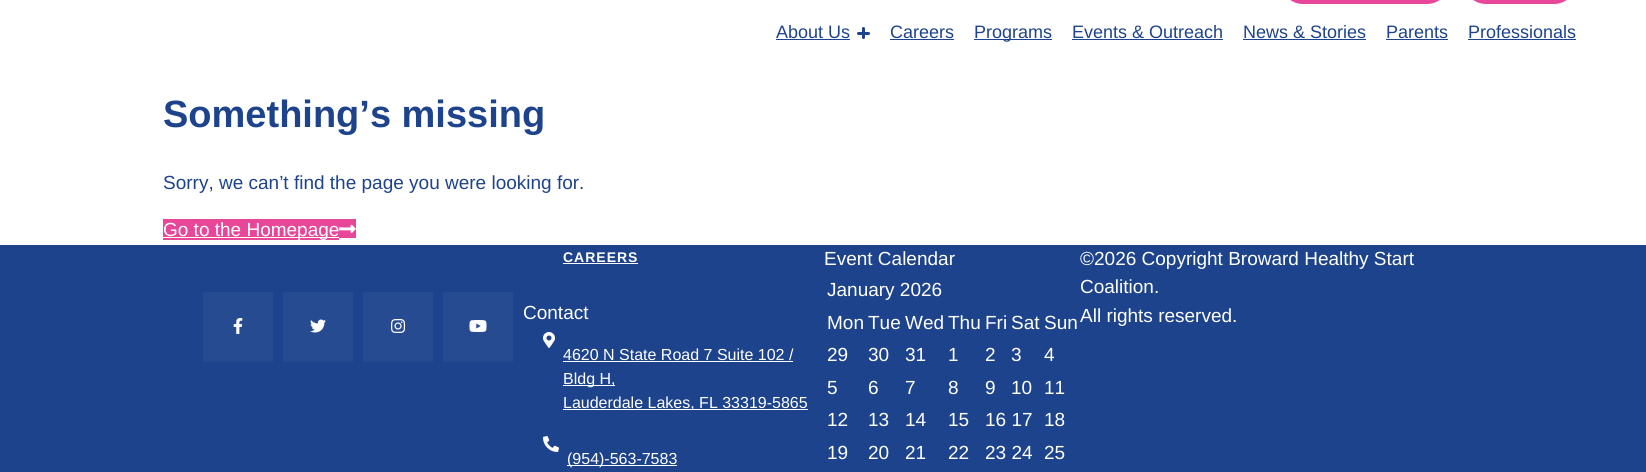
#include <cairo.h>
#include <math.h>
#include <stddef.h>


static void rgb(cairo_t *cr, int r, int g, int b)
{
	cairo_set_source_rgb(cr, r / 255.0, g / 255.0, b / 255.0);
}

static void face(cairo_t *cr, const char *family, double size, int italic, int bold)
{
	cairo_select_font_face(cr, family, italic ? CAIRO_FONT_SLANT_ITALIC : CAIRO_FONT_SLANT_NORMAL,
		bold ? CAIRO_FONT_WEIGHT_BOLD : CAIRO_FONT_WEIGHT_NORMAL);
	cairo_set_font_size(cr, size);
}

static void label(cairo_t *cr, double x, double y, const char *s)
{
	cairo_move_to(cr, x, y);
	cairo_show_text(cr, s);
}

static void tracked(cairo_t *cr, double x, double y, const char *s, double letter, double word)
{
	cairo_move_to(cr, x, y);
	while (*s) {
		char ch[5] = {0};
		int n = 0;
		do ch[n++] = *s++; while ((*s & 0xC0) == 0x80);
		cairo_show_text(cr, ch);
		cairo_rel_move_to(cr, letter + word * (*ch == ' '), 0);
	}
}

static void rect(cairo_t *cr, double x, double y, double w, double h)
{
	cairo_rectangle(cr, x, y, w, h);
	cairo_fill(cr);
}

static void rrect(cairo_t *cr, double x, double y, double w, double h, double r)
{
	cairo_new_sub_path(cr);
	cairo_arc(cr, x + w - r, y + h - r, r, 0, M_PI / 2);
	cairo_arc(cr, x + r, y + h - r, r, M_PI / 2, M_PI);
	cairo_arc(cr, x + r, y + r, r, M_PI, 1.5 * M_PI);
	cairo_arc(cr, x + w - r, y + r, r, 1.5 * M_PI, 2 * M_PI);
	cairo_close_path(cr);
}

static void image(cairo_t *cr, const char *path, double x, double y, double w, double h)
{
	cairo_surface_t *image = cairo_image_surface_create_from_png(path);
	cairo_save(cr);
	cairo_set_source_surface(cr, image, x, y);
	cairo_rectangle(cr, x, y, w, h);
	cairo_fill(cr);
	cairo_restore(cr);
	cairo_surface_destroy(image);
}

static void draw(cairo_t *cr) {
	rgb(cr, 255, 255, 255);
	cairo_paint(cr);
	rgb(cr, 232, 70, 153);
	rrect(cr, 1281, -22, 168, 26, 22);
	cairo_fill(cr);
	rrect(cr, 1464, -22, 112, 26, 22);
	cairo_fill(cr);
	face(cr, "Liberation Sans", 18, 0, 0);
	rgb(cr, 29, 67, 140);
	label(cr, 776, 38, "About Us");
	rect(cr, 776, 39, 74, 1);
	rrect(cr, 857, 32, 13, 3, 1.5);
	cairo_fill(cr);
	rrect(cr, 862, 27, 3, 12, 1.5);
	cairo_fill(cr);
	label(cr, 890, 38, "Careers");
	rect(cr, 890, 39, 64, 1);
	rect(cr, 974, 39, 78, 1);
	label(cr, 974, 38, "Programs");
	label(cr, 1072, 38, "Events & Outreach");
	rect(cr, 1072, 39, 151, 1);
	label(cr, 1243, 38, "News & Stories");
	rect(cr, 1243, 39, 123, 1);
	label(cr, 1386, 38, "Parents");
	rect(cr, 1386, 39, 62, 1);
	label(cr, 1468, 38, "Professionals");
	rect(cr, 1468, 39, 108, 1);
	face(cr, "Liberation Sans", 38, 0, 1);
	label(cr, 163, 127, "Something’s missing");
	face(cr, "Liberation Sans", 19, 0, 0);
	label(cr, 163, 189, "Sorry, we can’t find the page you were looking for.");
	rgb(cr, 232, 70, 153);
	rect(cr, 163, 219, 176, 21);
	rect(cr, 339, 219, 17, 19);
	rgb(cr, 255, 255, 255);
	rect(cr, 163, 237, 176, 1);
	label(cr, 163, 236, "Go to the Homepage");
	image(cr, "image0.png", 339, 224, 17, 9);
	rgb(cr, 29, 67, 140);
	rect(cr, 0, 245, 1646, 227);
	rgb(cr, 38, 75, 145);
	rect(cr, 203, 292, 70, 70);
	image(cr, "image1.png", 233, 318, 10, 16);
	rect(cr, 283, 292, 70, 70);
	image(cr, "image2.png", 310, 319, 16, 14);
	rect(cr, 363, 292, 70, 70);
	image(cr, "image3.png", 391, 319, 15, 14);
	rect(cr, 443, 292, 70, 70);
	image(cr, "image4.png", 469, 320, 18, 12);
	face(cr, "Liberation Sans", 14, 0, 1);
	rgb(cr, 255, 255, 255);
	tracked(cr, 563, 262, "CAREERS", 1, 0);
	rect(cr, 563, 263, 75, 1);
	face(cr, "Liberation Sans", 19, 0, 0);
	label(cr, 523, 319, "Contact");
	image(cr, "image5.png", 543, 332, 12, 16);
	face(cr, "Liberation Sans", 16, 0, 0);
	label(cr, 563, 360, "4620 N State Road 7 Suite 102 /");
	rect(cr, 563, 361, 230, 1);
	rect(cr, 563, 385, 52, 1);
	label(cr, 563, 384, "Bldg H,");
	rect(cr, 563, 409, 245, 1);
	label(cr, 563, 408, "Lauderdale Lakes, FL 33319-5865");
	image(cr, "image6.png", 543, 436, 16, 16);
	rect(cr, 567, 465, 110, 1);
	label(cr, 567, 464, "(954)-563-7583");
	face(cr, "Liberation Sans", 19, 0, 0);
	label(cr, 824, 265, "Event Calendar");
	label(cr, 827, 296, "January 2026");
	label(cr, 827, 329, "Mon");
	label(cr, 868, 329, "Tue");
	label(cr, 905, 329, "Wed");
	label(cr, 948, 329, "Thu");
	label(cr, 985, 329, "Fri");
	label(cr, 1011, 329, "Sat");
	label(cr, 1044, 329, "Sun");
	label(cr, 827, 361, "29");
	label(cr, 868, 361, "30");
	label(cr, 905, 361, "31");
	label(cr, 948, 361, "1");
	label(cr, 985, 361, "2");
	label(cr, 1011, 361, "3");
	label(cr, 1044, 361, "4");
	label(cr, 827, 394, "5");
	label(cr, 868, 394, "6");
	label(cr, 905, 394, "7");
	label(cr, 948, 394, "8");
	label(cr, 985, 394, "9");
	label(cr, 1011, 394, "10");
	label(cr, 1044, 394, "11");
	label(cr, 827, 426, "12");
	label(cr, 868, 426, "13");
	label(cr, 905, 426, "14");
	label(cr, 948, 426, "15");
	label(cr, 985, 426, "16 17");
	label(cr, 1044, 426, "18");
	label(cr, 827, 459, "19");
	label(cr, 868, 459, "20");
	label(cr, 905, 459, "21");
	label(cr, 948, 459, "22");
	label(cr, 985, 459, "23 24");
	label(cr, 1044, 459, "25");
	label(cr, 1080, 265, "©2026 Copyright Broward Healthy Start");
	label(cr, 1080, 293, "Coalition.");
	label(cr, 1080, 322, "All rights reserved.");
}

int main(void) {
	cairo_surface_t *surface = cairo_image_surface_create(CAIRO_FORMAT_RGB24, 1646, 472);
	cairo_t *cr = cairo_create(surface);
	cairo_font_options_t *options = cairo_font_options_create();
	cairo_font_options_set_hint_metrics(options, CAIRO_HINT_METRICS_OFF);
	cairo_font_options_set_hint_style(options, CAIRO_HINT_STYLE_NONE);
	cairo_set_font_options(cr, options);
	cairo_set_miter_limit(cr, 4);
	draw(cr);
	cairo_surface_write_to_png(surface, "render.png");
	cairo_font_options_destroy(options);
	cairo_destroy(cr);
	cairo_surface_destroy(surface);
	return 0;
}
